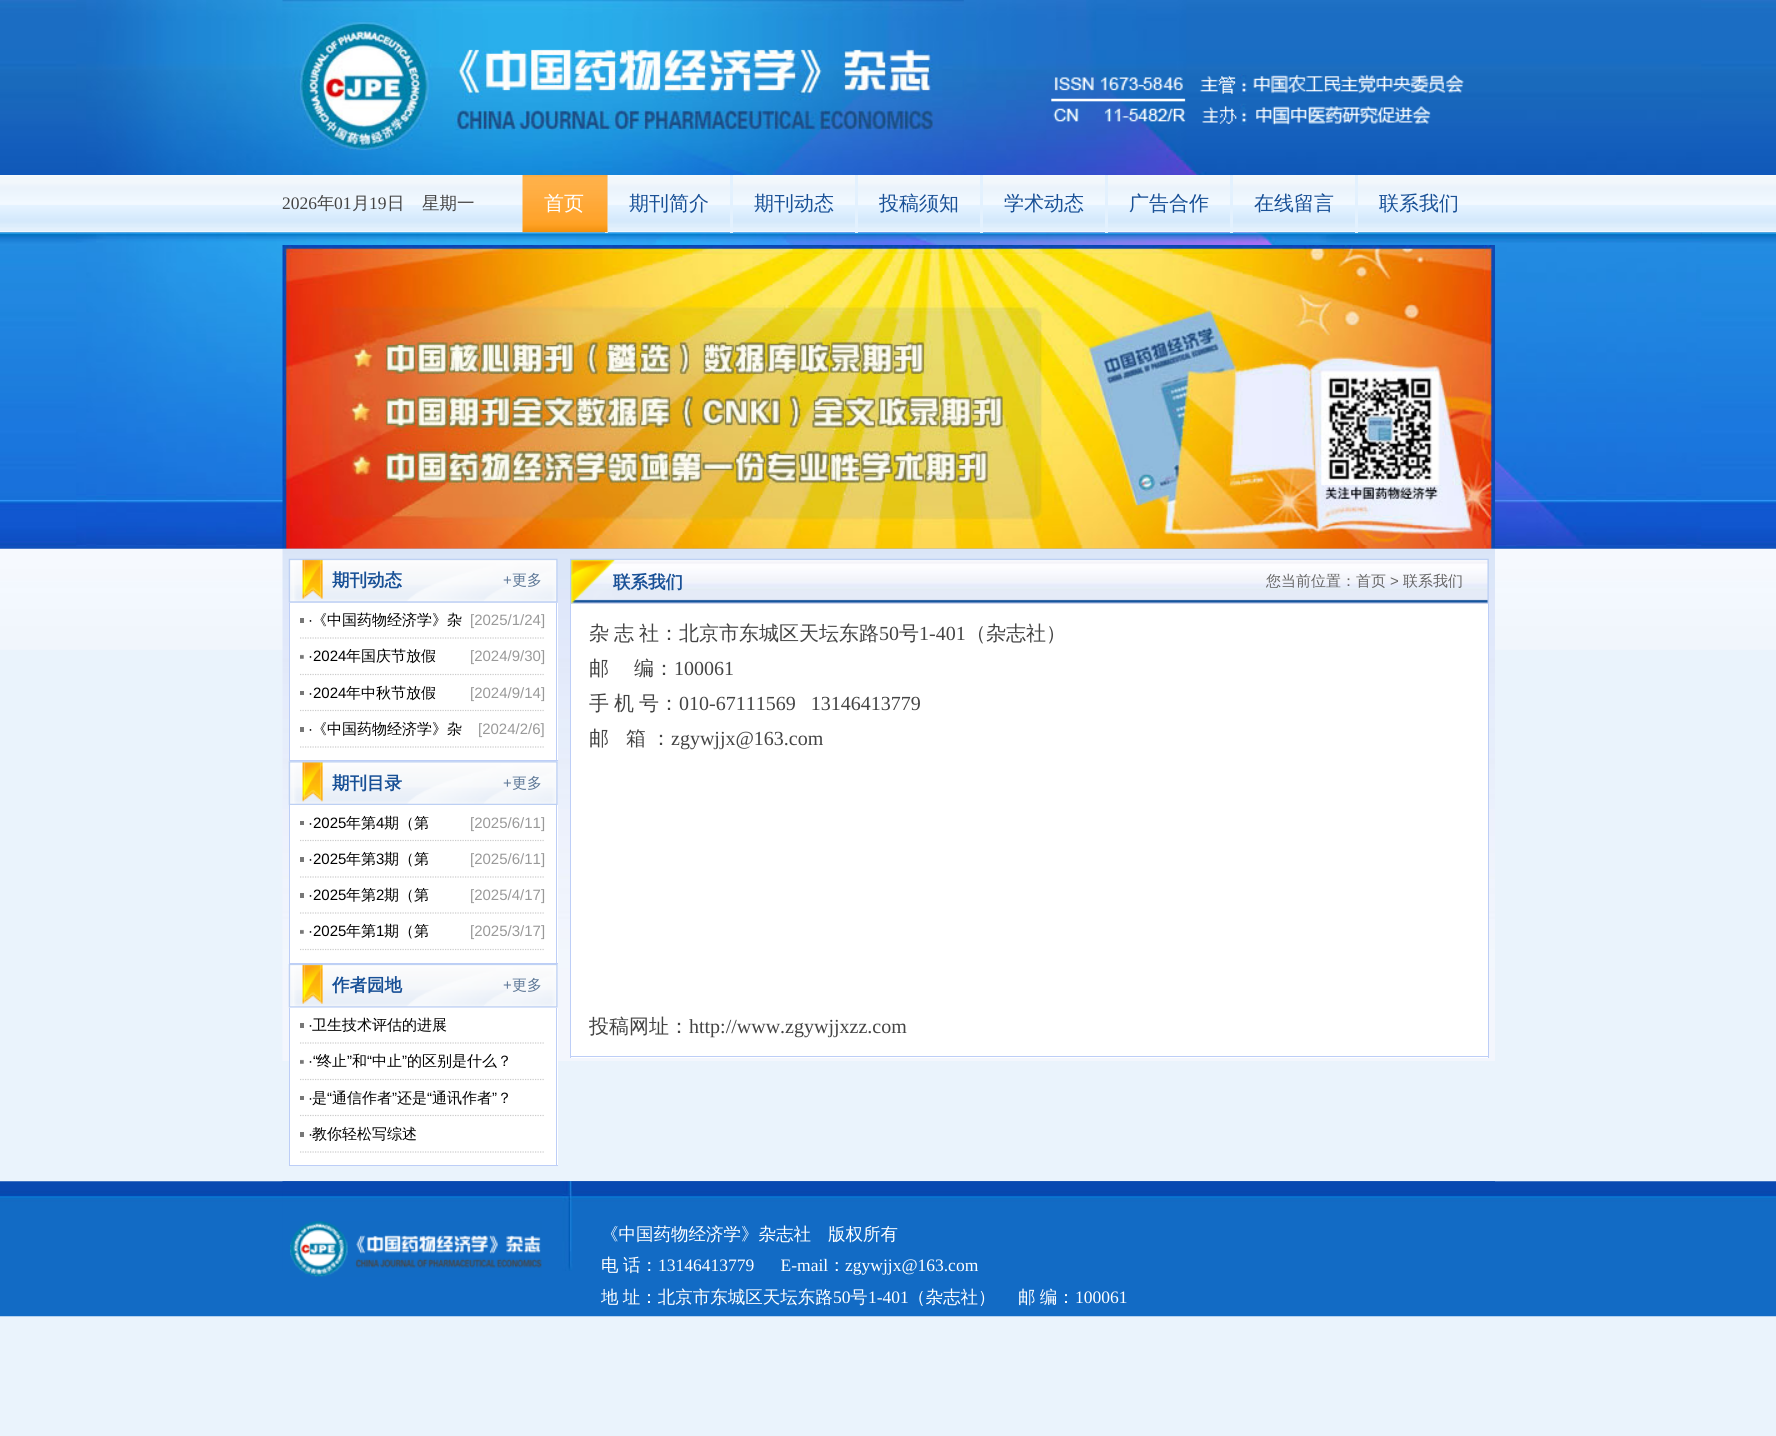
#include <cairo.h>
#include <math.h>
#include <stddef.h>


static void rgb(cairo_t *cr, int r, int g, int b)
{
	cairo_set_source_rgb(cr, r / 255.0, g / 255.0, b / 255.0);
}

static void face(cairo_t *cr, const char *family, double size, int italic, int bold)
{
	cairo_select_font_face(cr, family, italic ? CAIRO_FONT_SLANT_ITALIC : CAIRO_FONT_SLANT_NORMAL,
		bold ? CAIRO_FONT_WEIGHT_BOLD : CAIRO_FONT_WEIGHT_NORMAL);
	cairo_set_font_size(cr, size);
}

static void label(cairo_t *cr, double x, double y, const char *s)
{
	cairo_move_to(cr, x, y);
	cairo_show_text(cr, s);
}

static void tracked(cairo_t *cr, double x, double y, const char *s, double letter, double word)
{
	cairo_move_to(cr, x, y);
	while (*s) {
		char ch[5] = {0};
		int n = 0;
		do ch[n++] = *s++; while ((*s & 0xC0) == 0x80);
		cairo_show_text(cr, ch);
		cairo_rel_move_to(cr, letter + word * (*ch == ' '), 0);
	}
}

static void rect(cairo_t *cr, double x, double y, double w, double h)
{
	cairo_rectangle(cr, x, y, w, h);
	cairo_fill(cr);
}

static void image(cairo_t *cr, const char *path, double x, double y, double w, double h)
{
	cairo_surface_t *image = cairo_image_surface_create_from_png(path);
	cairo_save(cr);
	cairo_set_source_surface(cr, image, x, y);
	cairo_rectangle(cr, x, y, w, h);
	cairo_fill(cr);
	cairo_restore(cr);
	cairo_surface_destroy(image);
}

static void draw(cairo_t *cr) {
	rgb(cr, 234, 243, 252);
	cairo_paint(cr);
	image(cr, "image0.png", 0, 0, 1776, 650);
	image(cr, "image1.png", 76, 0, 1626, 235);
	image(cr, "image2.png", 282, 0, 682, 175);
	image(cr, "image3.png", 1051, 74, 413, 52);
	image(cr, "image6.png", 76, 232, 1626, 315);
	image(cr, "image4.png", 0, 175, 1776, 58);
	face(cr, "Liberation Serif", 17.5, 0, 0);
	rgb(cr, 68, 68, 68);
	label(cr, 282, 209, "2026");
	face(cr, "WenQuanYi Zen Hei Medium", 17.5, 0, 0);
	label(cr, 317, 209, "年");
	face(cr, "Liberation Serif", 17.5, 0, 0);
	label(cr, 334, 209, "01");
	face(cr, "WenQuanYi Zen Hei Medium", 17.5, 0, 0);
	label(cr, 352, 209, "月");
	face(cr, "Liberation Serif", 17.5, 0, 0);
	label(cr, 369, 209, "19");
	face(cr, "WenQuanYi Zen Hei Medium", 17.5, 0, 0);
	label(cr, 387, 209, "日　星期一");
	rgb(cr, 227, 241, 254);
	rect(cr, 605, 175, 3, 58);
	image(cr, "image5.png", 522, 175, 86, 58);
	face(cr, "WenQuanYi Zen Hei Medium", 20, 0, 0);
	rgb(cr, 255, 255, 255);
	label(cr, 544, 210, "首页");
	rgb(cr, 227, 241, 254);
	rect(cr, 730, 175, 3, 58);
	rgb(cr, 24, 80, 150);
	label(cr, 629, 210, "期刊简介");
	rgb(cr, 227, 241, 254);
	rect(cr, 855, 175, 3, 58);
	rgb(cr, 24, 80, 150);
	label(cr, 754, 210, "期刊动态");
	rgb(cr, 227, 241, 254);
	rect(cr, 980, 175, 3, 58);
	rgb(cr, 24, 80, 150);
	label(cr, 879, 210, "投稿须知");
	rgb(cr, 227, 241, 254);
	rect(cr, 1105, 175, 3, 58);
	rgb(cr, 24, 80, 150);
	label(cr, 1004, 210, "学术动态");
	rgb(cr, 227, 241, 254);
	rect(cr, 1230, 175, 3, 58);
	rgb(cr, 24, 80, 150);
	label(cr, 1129, 210, "广告合作");
	rgb(cr, 227, 241, 254);
	rect(cr, 1355, 175, 3, 58);
	rgb(cr, 24, 80, 150);
	label(cr, 1254, 210, "在线留言");
	label(cr, 1379, 210, "联系我们");
	image(cr, "image7.png", 282, 245, 1213, 304);
	image(cr, "image8.png", 282, 548, 1213, 513);
	image(cr, "image9.png", 288, 558, 270, 45);
	face(cr, "WenQuanYi Zen Hei", 17.5, 0, 1);
	label(cr, 332, 586, "期刊动态");
	face(cr, "Liberation Sans", 15, 0, 0);
	rgb(cr, 94, 120, 151);
	label(cr, 503, 585, "+");
	face(cr, "WenQuanYi Zen Hei Medium", 15, 0, 0);
	label(cr, 512, 585, "更多");
	rgb(cr, 255, 255, 255);
	rect(cr, 290, 603, 268, 157);
	rgb(cr, 189, 206, 247);
	rect(cr, 556, 603, 1, 158);
	rect(cr, 289, 760, 269, 1);
	rect(cr, 289, 603, 1, 158);
	rgb(cr, 119, 119, 119);
	rect(cr, 300, 618, 4, 5);
	cairo_new_path(cr);
	cairo_move_to(cr, 300, 638);
	cairo_line_to(cr, 545, 638);
	rgb(cr, 204, 204, 204);
	cairo_set_line_width(cr, 1.2);
	cairo_set_dash(cr, (double[]){1.25, 1.25}, 2, 0);
	cairo_stroke(cr);
	face(cr, "Liberation Sans", 15, 0, 0);
	rgb(cr, 0, 0, 0);
	label(cr, 308, 625, "·");
	face(cr, "WenQuanYi Zen Hei Medium", 15, 0, 0);
	label(cr, 312, 625, "《中国药物经济学》杂");
	face(cr, "Liberation Sans", 15, 0, 0);
	rgb(cr, 153, 153, 153);
	label(cr, 470, 625, "[2025/1/24]");
	image(cr, "image10.png", 300, 654, 4, 5);
	cairo_new_path(cr);
	cairo_move_to(cr, 300, 674.5);
	cairo_line_to(cr, 545, 674.5);
	rgb(cr, 204, 204, 204);
	cairo_stroke(cr);
	rgb(cr, 0, 0, 0);
	label(cr, 308, 661, "·2024");
	face(cr, "WenQuanYi Zen Hei Medium", 15, 0, 0);
	label(cr, 346, 661, "年国庆节放假");
	face(cr, "Liberation Sans", 15, 0, 0);
	rgb(cr, 153, 153, 153);
	label(cr, 470, 661, "[2024/9/30]");
	rgb(cr, 119, 119, 119);
	rect(cr, 300, 691, 4, 4);
	cairo_new_path(cr);
	cairo_move_to(cr, 300, 710.5);
	cairo_line_to(cr, 545, 710.5);
	rgb(cr, 204, 204, 204);
	cairo_stroke(cr);
	rgb(cr, 0, 0, 0);
	label(cr, 308, 698, "·2024");
	face(cr, "WenQuanYi Zen Hei Medium", 15, 0, 0);
	label(cr, 346, 698, "年中秋节放假");
	face(cr, "Liberation Sans", 15, 0, 0);
	rgb(cr, 153, 153, 153);
	label(cr, 470, 698, "[2024/9/14]");
	rgb(cr, 119, 119, 119);
	rect(cr, 300, 727, 4, 5);
	cairo_new_path(cr);
	cairo_move_to(cr, 300, 747);
	cairo_line_to(cr, 545, 747);
	rgb(cr, 204, 204, 204);
	cairo_stroke(cr);
	rgb(cr, 0, 0, 0);
	label(cr, 308, 734, "·");
	face(cr, "WenQuanYi Zen Hei Medium", 15, 0, 0);
	label(cr, 312, 734, "《中国药物经济学》杂");
	face(cr, "Liberation Sans", 15, 0, 0);
	rgb(cr, 153, 153, 153);
	label(cr, 478, 734, "[2024/2/6]");
	image(cr, "image11.png", 288, 761, 270, 45);
	face(cr, "WenQuanYi Zen Hei", 17.5, 0, 1);
	rgb(cr, 24, 80, 150);
	label(cr, 332, 789, "期刊目录");
	face(cr, "Liberation Sans", 15, 0, 0);
	rgb(cr, 94, 120, 151);
	label(cr, 503, 788, "+");
	face(cr, "WenQuanYi Zen Hei Medium", 15, 0, 0);
	label(cr, 512, 788, "更多");
	rgb(cr, 255, 255, 255);
	rect(cr, 290, 805, 268, 158);
	rgb(cr, 189, 206, 247);
	rect(cr, 556, 805, 1, 159);
	rect(cr, 289, 963, 269, 1);
	rect(cr, 289, 805, 1, 159);
	rgb(cr, 119, 119, 119);
	rect(cr, 300, 821, 4, 4);
	cairo_new_path(cr);
	cairo_move_to(cr, 300, 840.5);
	cairo_line_to(cr, 545, 840.5);
	rgb(cr, 204, 204, 204);
	cairo_stroke(cr);
	face(cr, "Liberation Sans", 15, 0, 0);
	rgb(cr, 0, 0, 0);
	label(cr, 308, 828, "·2025");
	face(cr, "WenQuanYi Zen Hei Medium", 15, 0, 0);
	label(cr, 346, 828, "年第");
	face(cr, "Liberation Sans", 15, 0, 0);
	label(cr, 376, 828, "4");
	face(cr, "WenQuanYi Zen Hei Medium", 15, 0, 0);
	label(cr, 384, 828, "期（第");
	face(cr, "Liberation Sans", 15, 0, 0);
	rgb(cr, 153, 153, 153);
	label(cr, 470, 828, "[2025/6/11]");
	rgb(cr, 119, 119, 119);
	rect(cr, 300, 857, 4, 5);
	cairo_new_path(cr);
	cairo_move_to(cr, 300, 877);
	cairo_line_to(cr, 545, 877);
	rgb(cr, 204, 204, 204);
	cairo_stroke(cr);
	rgb(cr, 0, 0, 0);
	label(cr, 308, 864, "·2025");
	face(cr, "WenQuanYi Zen Hei Medium", 15, 0, 0);
	label(cr, 346, 864, "年第");
	face(cr, "Liberation Sans", 15, 0, 0);
	label(cr, 376, 864, "3");
	face(cr, "WenQuanYi Zen Hei Medium", 15, 0, 0);
	label(cr, 384, 864, "期（第");
	face(cr, "Liberation Sans", 15, 0, 0);
	rgb(cr, 153, 153, 153);
	label(cr, 470, 864, "[2025/6/11]");
	rgb(cr, 119, 119, 119);
	rect(cr, 300, 893, 4, 5);
	cairo_new_path(cr);
	cairo_move_to(cr, 300, 913);
	cairo_line_to(cr, 545, 913);
	rgb(cr, 204, 204, 204);
	cairo_stroke(cr);
	rgb(cr, 0, 0, 0);
	label(cr, 308, 900, "·2025");
	face(cr, "WenQuanYi Zen Hei Medium", 15, 0, 0);
	label(cr, 346, 900, "年第");
	face(cr, "Liberation Sans", 15, 0, 0);
	label(cr, 376, 900, "2");
	face(cr, "WenQuanYi Zen Hei Medium", 15, 0, 0);
	label(cr, 384, 900, "期（第");
	face(cr, "Liberation Sans", 15, 0, 0);
	rgb(cr, 153, 153, 153);
	label(cr, 470, 900, "[2025/4/17]");
	image(cr, "image10.png", 300, 929, 4, 5);
	cairo_new_path(cr);
	cairo_move_to(cr, 300, 949.5);
	cairo_line_to(cr, 545, 949.5);
	rgb(cr, 204, 204, 204);
	cairo_stroke(cr);
	rgb(cr, 0, 0, 0);
	label(cr, 308, 936, "·2025");
	face(cr, "WenQuanYi Zen Hei Medium", 15, 0, 0);
	label(cr, 346, 936, "年第");
	face(cr, "Liberation Sans", 15, 0, 0);
	label(cr, 376, 936, "1");
	face(cr, "WenQuanYi Zen Hei Medium", 15, 0, 0);
	label(cr, 384, 936, "期（第");
	face(cr, "Liberation Sans", 15, 0, 0);
	rgb(cr, 153, 153, 153);
	label(cr, 470, 936, "[2025/3/17]");
	image(cr, "image12.png", 288, 964, 270, 44);
	face(cr, "WenQuanYi Zen Hei", 17.5, 0, 1);
	rgb(cr, 24, 80, 150);
	label(cr, 332, 991, "作者园地");
	face(cr, "Liberation Sans", 15, 0, 0);
	rgb(cr, 94, 120, 151);
	label(cr, 503, 990, "+");
	face(cr, "WenQuanYi Zen Hei Medium", 15, 0, 0);
	label(cr, 512, 990, "更多");
	rgb(cr, 255, 255, 255);
	rect(cr, 290, 1008, 268, 157);
	rgb(cr, 189, 206, 247);
	rect(cr, 556, 1008, 1, 158);
	rect(cr, 289, 1165, 269, 1);
	rect(cr, 289, 1008, 1, 158);
	rgb(cr, 119, 119, 119);
	rect(cr, 300, 1023, 4, 5);
	cairo_new_path(cr);
	cairo_move_to(cr, 300, 1043);
	cairo_line_to(cr, 545, 1043);
	rgb(cr, 204, 204, 204);
	cairo_stroke(cr);
	face(cr, "Liberation Sans", 15, 0, 0);
	rgb(cr, 0, 0, 0);
	label(cr, 308, 1030, "·");
	face(cr, "WenQuanYi Zen Hei Medium", 15, 0, 0);
	label(cr, 312, 1030, "卫生技术评估的进展");
	image(cr, "image10.png", 300, 1059, 4, 5);
	cairo_new_path(cr);
	cairo_move_to(cr, 300, 1079.5);
	cairo_line_to(cr, 545, 1079.5);
	rgb(cr, 204, 204, 204);
	cairo_stroke(cr);
	face(cr, "Liberation Sans", 15, 0, 0);
	rgb(cr, 0, 0, 0);
	label(cr, 308, 1066, "·“");
	face(cr, "WenQuanYi Zen Hei Medium", 15, 0, 0);
	label(cr, 317, 1066, "终止");
	face(cr, "Liberation Sans", 15, 0, 0);
	label(cr, 347, 1066, "”");
	face(cr, "WenQuanYi Zen Hei Medium", 15, 0, 0);
	label(cr, 352, 1066, "和");
	face(cr, "Liberation Sans", 15, 0, 0);
	label(cr, 367, 1066, "“");
	face(cr, "WenQuanYi Zen Hei Medium", 15, 0, 0);
	label(cr, 372, 1066, "中止");
	face(cr, "Liberation Sans", 15, 0, 0);
	label(cr, 402, 1066, "”");
	face(cr, "WenQuanYi Zen Hei Medium", 15, 0, 0);
	label(cr, 407, 1066, "的区别是什么？");
	rgb(cr, 119, 119, 119);
	rect(cr, 300, 1096, 4, 4);
	cairo_new_path(cr);
	cairo_move_to(cr, 300, 1115.5);
	cairo_line_to(cr, 545, 1115.5);
	rgb(cr, 204, 204, 204);
	cairo_stroke(cr);
	face(cr, "Liberation Sans", 15, 0, 0);
	rgb(cr, 0, 0, 0);
	label(cr, 308, 1103, "·");
	face(cr, "WenQuanYi Zen Hei Medium", 15, 0, 0);
	label(cr, 312, 1103, "是");
	face(cr, "Liberation Sans", 15, 0, 0);
	label(cr, 327, 1103, "“");
	face(cr, "WenQuanYi Zen Hei Medium", 15, 0, 0);
	label(cr, 332, 1103, "通信作者");
	face(cr, "Liberation Sans", 15, 0, 0);
	label(cr, 392, 1103, "”");
	face(cr, "WenQuanYi Zen Hei Medium", 15, 0, 0);
	label(cr, 397, 1103, "还是");
	face(cr, "Liberation Sans", 15, 0, 0);
	label(cr, 427, 1103, "“");
	face(cr, "WenQuanYi Zen Hei Medium", 15, 0, 0);
	label(cr, 432, 1103, "通讯作者");
	face(cr, "Liberation Sans", 15, 0, 0);
	label(cr, 492, 1103, "”");
	face(cr, "WenQuanYi Zen Hei Medium", 15, 0, 0);
	label(cr, 497, 1103, "？");
	rgb(cr, 119, 119, 119);
	rect(cr, 300, 1132, 4, 5);
	cairo_new_path(cr);
	cairo_move_to(cr, 300, 1152);
	cairo_line_to(cr, 545, 1152);
	rgb(cr, 204, 204, 204);
	cairo_stroke(cr);
	face(cr, "Liberation Sans", 15, 0, 0);
	rgb(cr, 0, 0, 0);
	label(cr, 308, 1139, "·");
	face(cr, "WenQuanYi Zen Hei Medium", 15, 0, 0);
	label(cr, 312, 1139, "教你轻松写综述");
	image(cr, "image13.png", 570, 558, 919, 46);
	face(cr, "WenQuanYi Zen Hei", 17.5, 0, 1);
	rgb(cr, 24, 80, 150);
	label(cr, 613, 588, "联系我们");
	face(cr, "WenQuanYi Zen Hei Medium", 15, 0, 0);
	rgb(cr, 102, 102, 102);
	label(cr, 1266, 586, "您当前位置：首页");
	face(cr, "Liberation Sans", 15, 0, 0);
	label(cr, 1390, 586, ">");
	face(cr, "WenQuanYi Zen Hei Medium", 15, 0, 0);
	label(cr, 1403, 586, "联系我们");
	rgb(cr, 255, 255, 255);
	rect(cr, 571, 604, 917, 454);
	rgb(cr, 189, 206, 247);
	rect(cr, 1488, 604, 1, 454);
	rect(cr, 570, 1056, 919, 1);
	rect(cr, 570, 604, 1, 454);
	face(cr, "WenQuanYi Zen Hei Medium", 20, 0, 0);
	rgb(cr, 68, 68, 68);
	tracked(cr, 589, 640, "杂 志 社：北京市东城区天坛东路", 0, -1);
	face(cr, "Liberation Serif", 20, 0, 0);
	label(cr, 879, 640, "50");
	face(cr, "WenQuanYi Zen Hei Medium", 20, 0, 0);
	label(cr, 899, 640, "号");
	face(cr, "Liberation Serif", 20, 0, 0);
	label(cr, 919, 640, "1-401");
	face(cr, "WenQuanYi Zen Hei Medium", 20, 0, 0);
	label(cr, 966, 640, "（杂志社）");
	label(cr, 589, 675, "邮");
	label(cr, 634, 675, "编：");
	face(cr, "Liberation Serif", 20, 0, 0);
	label(cr, 674, 675, "100061");
	face(cr, "WenQuanYi Zen Hei Medium", 20, 0, 0);
	label(cr, 589, 710, "手");
	label(cr, 614, 710, "机");
	label(cr, 639, 710, "号：");
	face(cr, "Liberation Serif", 20, 0, 0);
	label(cr, 679, 710, "010-67111569   13146413779");
	face(cr, "WenQuanYi Zen Hei Medium", 20, 0, 0);
	label(cr, 589, 745, "邮");
	tracked(cr, 626, 745, "箱 ：", 0, -1);
	face(cr, "Liberation Serif", 20, 0, 0);
	label(cr, 671, 745, "zgywjjx@163.com");
	face(cr, "WenQuanYi Zen Hei Medium", 20, 0, 0);
	label(cr, 589, 1033, "投稿网址：");
	face(cr, "Liberation Serif", 20, 0, 0);
	label(cr, 689, 1033, "http://www.zgywjjxzz.com");
	image(cr, "image14.png", 0, 1181, 1776, 136);
	image(cr, "image15.png", 282, 1181, 1213, 90);
	image(cr, "image16.png", 290, 1221, 252, 56);
	face(cr, "WenQuanYi Zen Hei Medium", 17.5, 0, 0);
	rgb(cr, 255, 255, 255);
	label(cr, 601, 1240, "《中国药物经济学》杂志社");
	label(cr, 828, 1240, "版权所有");
	label(cr, 601, 1271, "电");
	label(cr, 623, 1271, "话：");
	face(cr, "Liberation Serif", 17.5, 0, 0);
	label(cr, 658, 1271, "13146413779      E-mail");
	face(cr, "WenQuanYi Zen Hei Medium", 17.5, 0, 0);
	label(cr, 828, 1271, "：");
	face(cr, "Liberation Serif", 17.5, 0, 0);
	label(cr, 845, 1271, "zgywjjx@163.com");
	face(cr, "WenQuanYi Zen Hei Medium", 17.5, 0, 0);
	tracked(cr, 601, 1303, "地 址：北京市东城区天坛东路", 0, -1);
	face(cr, "Liberation Serif", 17.5, 0, 0);
	label(cr, 833, 1303, "50");
	face(cr, "WenQuanYi Zen Hei Medium", 17.5, 0, 0);
	label(cr, 850, 1303, "号");
	face(cr, "Liberation Serif", 17.5, 0, 0);
	label(cr, 868, 1303, "1-401");
	face(cr, "WenQuanYi Zen Hei Medium", 17.5, 0, 0);
	label(cr, 908, 1303, "（杂志社）");
	tracked(cr, 1018, 1303, "邮 编：", 0, -1);
	face(cr, "Liberation Serif", 17.5, 0, 0);
	label(cr, 1075, 1303, "100061");
}

int main(void) {
	cairo_surface_t *surface = cairo_image_surface_create(CAIRO_FORMAT_RGB24, 1776, 1436);
	cairo_t *cr = cairo_create(surface);
	cairo_font_options_t *options = cairo_font_options_create();
	cairo_font_options_set_hint_metrics(options, CAIRO_HINT_METRICS_OFF);
	cairo_font_options_set_hint_style(options, CAIRO_HINT_STYLE_NONE);
	cairo_set_font_options(cr, options);
	cairo_set_miter_limit(cr, 4);
	draw(cr);
	cairo_surface_write_to_png(surface, "render.png");
	cairo_font_options_destroy(options);
	cairo_destroy(cr);
	cairo_surface_destroy(surface);
	return 0;
}
